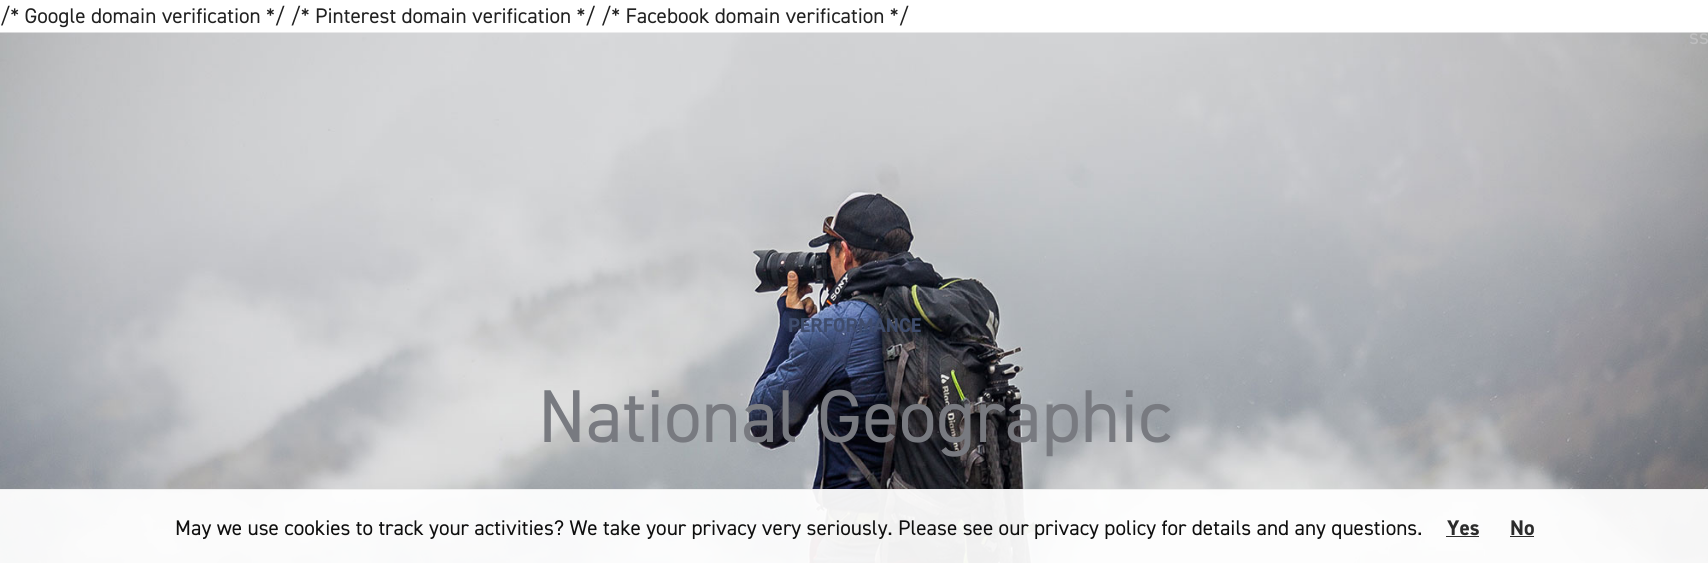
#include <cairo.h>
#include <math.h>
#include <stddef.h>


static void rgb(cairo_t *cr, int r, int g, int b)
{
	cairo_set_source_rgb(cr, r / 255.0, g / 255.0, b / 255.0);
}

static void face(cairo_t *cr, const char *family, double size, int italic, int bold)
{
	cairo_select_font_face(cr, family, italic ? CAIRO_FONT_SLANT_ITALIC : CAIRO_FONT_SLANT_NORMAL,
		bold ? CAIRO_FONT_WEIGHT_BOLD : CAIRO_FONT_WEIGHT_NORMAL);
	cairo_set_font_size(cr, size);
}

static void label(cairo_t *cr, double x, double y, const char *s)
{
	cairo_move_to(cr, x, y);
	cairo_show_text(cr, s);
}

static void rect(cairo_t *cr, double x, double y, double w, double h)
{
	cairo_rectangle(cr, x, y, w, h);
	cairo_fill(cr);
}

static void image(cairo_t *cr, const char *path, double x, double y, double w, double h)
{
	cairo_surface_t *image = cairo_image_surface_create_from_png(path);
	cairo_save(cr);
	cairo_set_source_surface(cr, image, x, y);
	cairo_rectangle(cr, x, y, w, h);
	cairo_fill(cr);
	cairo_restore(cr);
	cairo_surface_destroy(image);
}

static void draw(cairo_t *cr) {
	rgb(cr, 255, 255, 255);
	cairo_paint(cr);
	face(cr, "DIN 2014", 21.25, 0, 0);
	rgb(cr, 33, 33, 33);
	label(cr, 0, 23, "/* Google domain verification */ /* Pinterest domain verification */ /* Facebook domain verification */");
	image(cr, "image0.png", 0, 32, 1708, 531);
	rgb(cr, 190, 190, 191);
	label(cr, 1689, 44, "ss");
	face(cr, "DIN 2014", 20, 0, 1);
	rgb(cr, 63, 76, 107);
	label(cr, 788, 332, "PERFORMANCE");
	face(cr, "DIN 2014", 75, 0, 0);
	rgb(cr, 120, 122, 128);
	label(cr, 538, 442, "National Geographic");
	cairo_set_source_rgba(cr, 1, 1, 1, 0.94);
	rect(cr, 0, 489, 1708, 74);
	cairo_set_source_rgba(cr, 0.933, 0.933, 0.933, 0.94);
	rect(cr, 0, 489, 1708, 1);
	face(cr, "DIN 2014", 21.25, 0, 0);
	rgb(cr, 15, 15, 15);
	label(cr, 175, 535, "May we use cookies to track your activities? We take your privacy very seriously. Please see our privacy policy for details and any questions.");
	face(cr, "DIN 2014", 21.25, 0, 1);
	rgb(cr, 44, 44, 44);
	label(cr, 1447, 535, "Yes");
	rgb(cr, 46, 46, 46);
	rect(cr, 1446, 536, 33, 1);
	rgb(cr, 44, 44, 44);
	label(cr, 1510, 535, "No");
	rgb(cr, 43, 43, 43);
	rect(cr, 1510, 536, 24, 1);
}

int main(void) {
	cairo_surface_t *surface = cairo_image_surface_create(CAIRO_FORMAT_RGB24, 1708, 563);
	cairo_t *cr = cairo_create(surface);
	cairo_font_options_t *options = cairo_font_options_create();
	cairo_font_options_set_hint_metrics(options, CAIRO_HINT_METRICS_OFF);
	cairo_font_options_set_hint_style(options, CAIRO_HINT_STYLE_NONE);
	cairo_set_font_options(cr, options);
	cairo_set_miter_limit(cr, 4);
	draw(cr);
	cairo_surface_write_to_png(surface, "render.png");
	cairo_font_options_destroy(options);
	cairo_destroy(cr);
	cairo_surface_destroy(surface);
	return 0;
}
